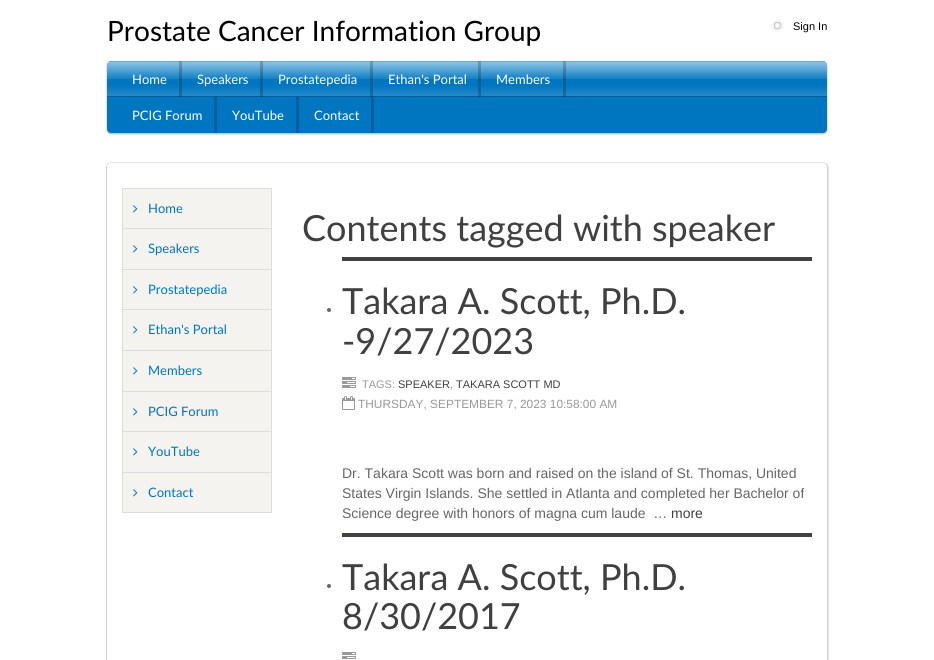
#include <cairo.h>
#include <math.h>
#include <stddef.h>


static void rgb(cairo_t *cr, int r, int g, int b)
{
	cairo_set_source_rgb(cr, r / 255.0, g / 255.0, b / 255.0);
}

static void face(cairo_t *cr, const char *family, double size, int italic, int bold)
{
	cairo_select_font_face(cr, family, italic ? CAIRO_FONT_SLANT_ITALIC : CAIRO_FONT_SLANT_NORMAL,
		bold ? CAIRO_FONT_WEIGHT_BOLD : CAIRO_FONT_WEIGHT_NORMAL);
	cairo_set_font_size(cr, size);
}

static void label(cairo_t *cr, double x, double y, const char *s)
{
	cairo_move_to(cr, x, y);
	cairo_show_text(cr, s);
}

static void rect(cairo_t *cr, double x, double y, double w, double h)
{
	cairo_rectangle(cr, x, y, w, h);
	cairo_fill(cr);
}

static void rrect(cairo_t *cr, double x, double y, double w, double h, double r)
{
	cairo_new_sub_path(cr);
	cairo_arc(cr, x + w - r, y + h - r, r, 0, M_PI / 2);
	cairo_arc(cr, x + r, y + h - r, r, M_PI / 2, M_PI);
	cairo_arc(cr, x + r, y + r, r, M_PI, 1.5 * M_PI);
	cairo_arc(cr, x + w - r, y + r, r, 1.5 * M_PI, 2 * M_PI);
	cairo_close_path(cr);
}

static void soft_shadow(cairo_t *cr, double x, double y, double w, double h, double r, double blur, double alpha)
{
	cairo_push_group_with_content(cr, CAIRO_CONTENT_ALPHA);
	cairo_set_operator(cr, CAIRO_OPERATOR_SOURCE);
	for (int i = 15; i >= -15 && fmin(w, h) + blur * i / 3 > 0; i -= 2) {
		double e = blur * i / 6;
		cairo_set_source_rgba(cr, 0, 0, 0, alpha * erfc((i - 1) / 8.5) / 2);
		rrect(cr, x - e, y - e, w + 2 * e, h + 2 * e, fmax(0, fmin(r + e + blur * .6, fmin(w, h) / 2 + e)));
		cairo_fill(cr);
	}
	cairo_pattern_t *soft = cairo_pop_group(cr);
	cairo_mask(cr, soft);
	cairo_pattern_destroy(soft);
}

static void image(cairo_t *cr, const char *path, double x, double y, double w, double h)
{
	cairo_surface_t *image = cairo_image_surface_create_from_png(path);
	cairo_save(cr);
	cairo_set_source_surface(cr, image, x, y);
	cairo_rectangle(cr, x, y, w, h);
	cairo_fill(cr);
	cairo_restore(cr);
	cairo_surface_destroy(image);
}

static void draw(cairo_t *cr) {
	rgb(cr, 255, 255, 255);
	cairo_paint(cr);
	face(cr, "Lato", 28, 0, 0);
	rgb(cr, 0, 0, 0);
	label(cr, 107, 41, "Prostate Cancer Information Group");
	image(cr, "image0.png", 771, 19, 13, 13);
	face(cr, "Liberation Sans", 11, 0, 0);
	label(cr, 793, 30, "Sign In");
	rgb(cr, 0, 0, 0);
	soft_shadow(cr, 107, 62, 720, 72, 4, 1, 0.3);
	rgb(cr, 0, 118, 192);
	rrect(cr, 107, 61, 720, 72, 4);
	cairo_fill(cr);
	image(cr, "image1.png", 107, 61, 720, 36);
	cairo_set_source_rgba(cr, 0, 0, 0, 0.2);
	rect(cr, 179, 61, 3, 36);
	face(cr, "Lato", 13, 0, 0);
	rgb(cr, 255, 255, 255);
	label(cr, 132, 84, "Home");
	cairo_set_source_rgba(cr, 0, 0, 0, 0.2);
	rect(cr, 260, 61, 3, 36);
	rgb(cr, 255, 255, 255);
	label(cr, 197, 84, "Speakers");
	cairo_set_source_rgba(cr, 0, 0, 0, 0.2);
	rect(cr, 370, 61, 3, 36);
	rgb(cr, 255, 255, 255);
	label(cr, 278, 84, "Prostatepedia");
	cairo_set_source_rgba(cr, 0, 0, 0, 0.2);
	rect(cr, 478, 61, 3, 36);
	rgb(cr, 255, 255, 255);
	label(cr, 388, 84, "Ethan's Portal");
	cairo_set_source_rgba(cr, 0, 0, 0, 0.2);
	rect(cr, 563, 61, 3, 36);
	rgb(cr, 255, 255, 255);
	label(cr, 496, 84, "Members");
	rgb(cr, 0, 94, 154);
	rect(cr, 214, 97, 3, 36);
	rgb(cr, 255, 255, 255);
	label(cr, 132, 120, "PCIG Forum");
	rgb(cr, 0, 94, 154);
	rect(cr, 296, 97, 3, 36);
	rgb(cr, 255, 255, 255);
	label(cr, 232, 120, "YouTube");
	rgb(cr, 0, 94, 154);
	rect(cr, 371, 97, 3, 36);
	rgb(cr, 255, 255, 255);
	label(cr, 314, 120, "Contact");
	rgb(cr, 232, 232, 232);
	cairo_new_path(cr);
	cairo_move_to(cr, 111, 162);
	cairo_curve_to(cr, 108, 162, 107, 164, 107, 167);
	cairo_curve_to(cr, 107, 165, 109, 163, 111, 163);
	cairo_line_to(cr, 823, 163);
	cairo_curve_to(cr, 825, 163, 827, 165, 827, 167);
	cairo_curve_to(cr, 827, 164, 826, 162, 823, 162);
	cairo_close_path(cr);
	cairo_fill(cr);
	rgb(cr, 230, 230, 230);
	cairo_new_path(cr);
	cairo_move_to(cr, 823, 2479);
	cairo_line_to(cr, 825, 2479);
	cairo_curve_to(cr, 827, 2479, 829, 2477, 829, 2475);
	cairo_line_to(cr, 829, 167);
	cairo_curve_to(cr, 829, 165, 827, 163, 825, 163);
	cairo_line_to(cr, 823, 163);
	cairo_curve_to(cr, 825, 163, 827, 165, 827, 167);
	cairo_line_to(cr, 827, 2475);
	cairo_curve_to(cr, 827, 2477, 825, 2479, 823, 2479);
	cairo_close_path(cr);
	cairo_fill(cr);
	rgb(cr, 210, 210, 210);
	cairo_new_path(cr);
	cairo_move_to(cr, 823, 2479);
	cairo_line_to(cr, 824, 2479);
	cairo_curve_to(cr, 826, 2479, 828, 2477, 828, 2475);
	cairo_line_to(cr, 828, 167);
	cairo_curve_to(cr, 828, 165, 826, 163, 824, 163);
	cairo_line_to(cr, 823, 163);
	cairo_curve_to(cr, 825, 163, 827, 165, 827, 167);
	cairo_line_to(cr, 827, 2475);
	cairo_curve_to(cr, 827, 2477, 825, 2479, 823, 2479);
	cairo_close_path(cr);
	cairo_fill(cr);
	cairo_new_path(cr);
	cairo_move_to(cr, 110, 163);
	cairo_curve_to(cr, 108, 163, 106, 165, 106, 167);
	cairo_line_to(cr, 106, 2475);
	cairo_curve_to(cr, 106, 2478, 108, 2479, 111, 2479);
	cairo_curve_to(cr, 109, 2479, 107, 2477, 107, 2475);
	cairo_line_to(cr, 107, 167);
	cairo_curve_to(cr, 107, 165, 109, 163, 111, 163);
	cairo_close_path(cr);
	cairo_fill(cr);
	rgb(cr, 255, 255, 255);
	rrect(cr, 107, 163, 720, 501, 4);
	cairo_fill(cr);
	rgb(cr, 244, 243, 240);
	rect(cr, 123, 189, 148, 323);
	rgb(cr, 221, 221, 221);
	rect(cr, 271, 188, 1, 325);
	rect(cr, 122, 512, 150, 1);
	rect(cr, 122, 188, 1, 325);
	rect(cr, 123, 188, 148, 1);
	image(cr, "image2.png", 133, 205, 5, 8);
	rgb(cr, 0, 118, 192);
	label(cr, 148, 213, "Home");
	rgb(cr, 221, 221, 221);
	rect(cr, 123, 228, 148, 1);
	image(cr, "image2.png", 133, 245, 5, 8);
	rgb(cr, 0, 118, 192);
	label(cr, 148, 253, "Speakers");
	rgb(cr, 221, 221, 221);
	rect(cr, 123, 269, 148, 1);
	image(cr, "image2.png", 133, 286, 5, 8);
	rgb(cr, 0, 118, 192);
	label(cr, 148, 294, "Prostatepedia");
	rgb(cr, 221, 221, 221);
	rect(cr, 123, 309, 148, 1);
	image(cr, "image2.png", 133, 326, 5, 8);
	rgb(cr, 0, 118, 192);
	label(cr, 148, 334, "Ethan's Portal");
	rgb(cr, 221, 221, 221);
	rect(cr, 123, 350, 148, 1);
	image(cr, "image2.png", 133, 367, 5, 8);
	rgb(cr, 0, 118, 192);
	label(cr, 148, 375, "Members");
	rgb(cr, 221, 221, 221);
	rect(cr, 123, 391, 148, 1);
	image(cr, "image2.png", 133, 408, 5, 8);
	rgb(cr, 0, 118, 192);
	label(cr, 148, 416, "PCIG Forum");
	rgb(cr, 221, 221, 221);
	rect(cr, 123, 431, 148, 1);
	image(cr, "image2.png", 133, 448, 5, 8);
	rgb(cr, 0, 118, 192);
	label(cr, 148, 456, "YouTube");
	rgb(cr, 221, 221, 221);
	rect(cr, 123, 472, 148, 1);
	image(cr, "image2.png", 133, 489, 5, 8);
	rgb(cr, 0, 118, 192);
	label(cr, 148, 497, "Contact");
	face(cr, "Lato", 36, 0, 0);
	rgb(cr, 64, 64, 64);
	label(cr, 302, 241, "Contents tagged with speaker");
	rgb(cr, 102, 102, 102);
	cairo_new_path(cr);
	cairo_arc(cr, 329, 310, 2, 0, 2 * M_PI);
	cairo_fill(cr);
	rgb(cr, 65, 64, 66);
	rect(cr, 342, 257, 470, 4);
	rgb(cr, 64, 64, 64);
	label(cr, 342, 314, "Takara A. Scott, Ph.D.");
	label(cr, 342, 354, "-9/27/2023");
	image(cr, "image3.png", 342, 377, 14, 11);
	face(cr, "Liberation Sans", 11, 0, 0);
	rgb(cr, 153, 153, 153);
	label(cr, 362, 388, "TAGS:");
	rgb(cr, 64, 64, 64);
	label(cr, 398, 388, "SPEAKER");
	rgb(cr, 153, 153, 153);
	label(cr, 450, 388, ",");
	rgb(cr, 64, 64, 64);
	label(cr, 456, 388, "TAKARA SCOTT MD");
	image(cr, "image4.png", 342, 396, 13, 14);
	face(cr, "Liberation Sans", 11.9, 0, 0);
	rgb(cr, 153, 153, 153);
	label(cr, 358, 408, "THURSDAY, SEPTEMBER 7, 2023 10:58:00 AM");
	face(cr, "Liberation Sans", 14, 0, 0);
	rgb(cr, 102, 102, 102);
	label(cr, 342, 478, "Dr. Takara Scott was born and raised on the island of St. Thomas, United");
	label(cr, 342, 498, "States Virgin Islands. She settled in Atlanta and completed her Bachelor of");
	label(cr, 342, 518, "Science degree with honors of magna cum laude  …");
	rgb(cr, 64, 64, 64);
	label(cr, 671, 518, "more");
	rgb(cr, 102, 102, 102);
	cairo_new_path(cr);
	cairo_arc(cr, 329, 586, 2, 0, 2 * M_PI);
	cairo_fill(cr);
	rgb(cr, 65, 64, 66);
	rect(cr, 342, 533, 470, 4);
	face(cr, "Lato", 36, 0, 0);
	rgb(cr, 64, 64, 64);
	label(cr, 342, 590, "Takara A. Scott, Ph.D.");
	label(cr, 342, 629, "8/30/2017");
	image(cr, "image5.png", 342, 652, 14, 7);
}

int main(void) {
	cairo_surface_t *surface = cairo_image_surface_create(CAIRO_FORMAT_RGB24, 934, 660);
	cairo_t *cr = cairo_create(surface);
	cairo_font_options_t *options = cairo_font_options_create();
	cairo_font_options_set_hint_metrics(options, CAIRO_HINT_METRICS_OFF);
	cairo_font_options_set_hint_style(options, CAIRO_HINT_STYLE_NONE);
	cairo_set_font_options(cr, options);
	cairo_set_miter_limit(cr, 4);
	draw(cr);
	cairo_surface_write_to_png(surface, "render.png");
	cairo_font_options_destroy(options);
	cairo_destroy(cr);
	cairo_surface_destroy(surface);
	return 0;
}
